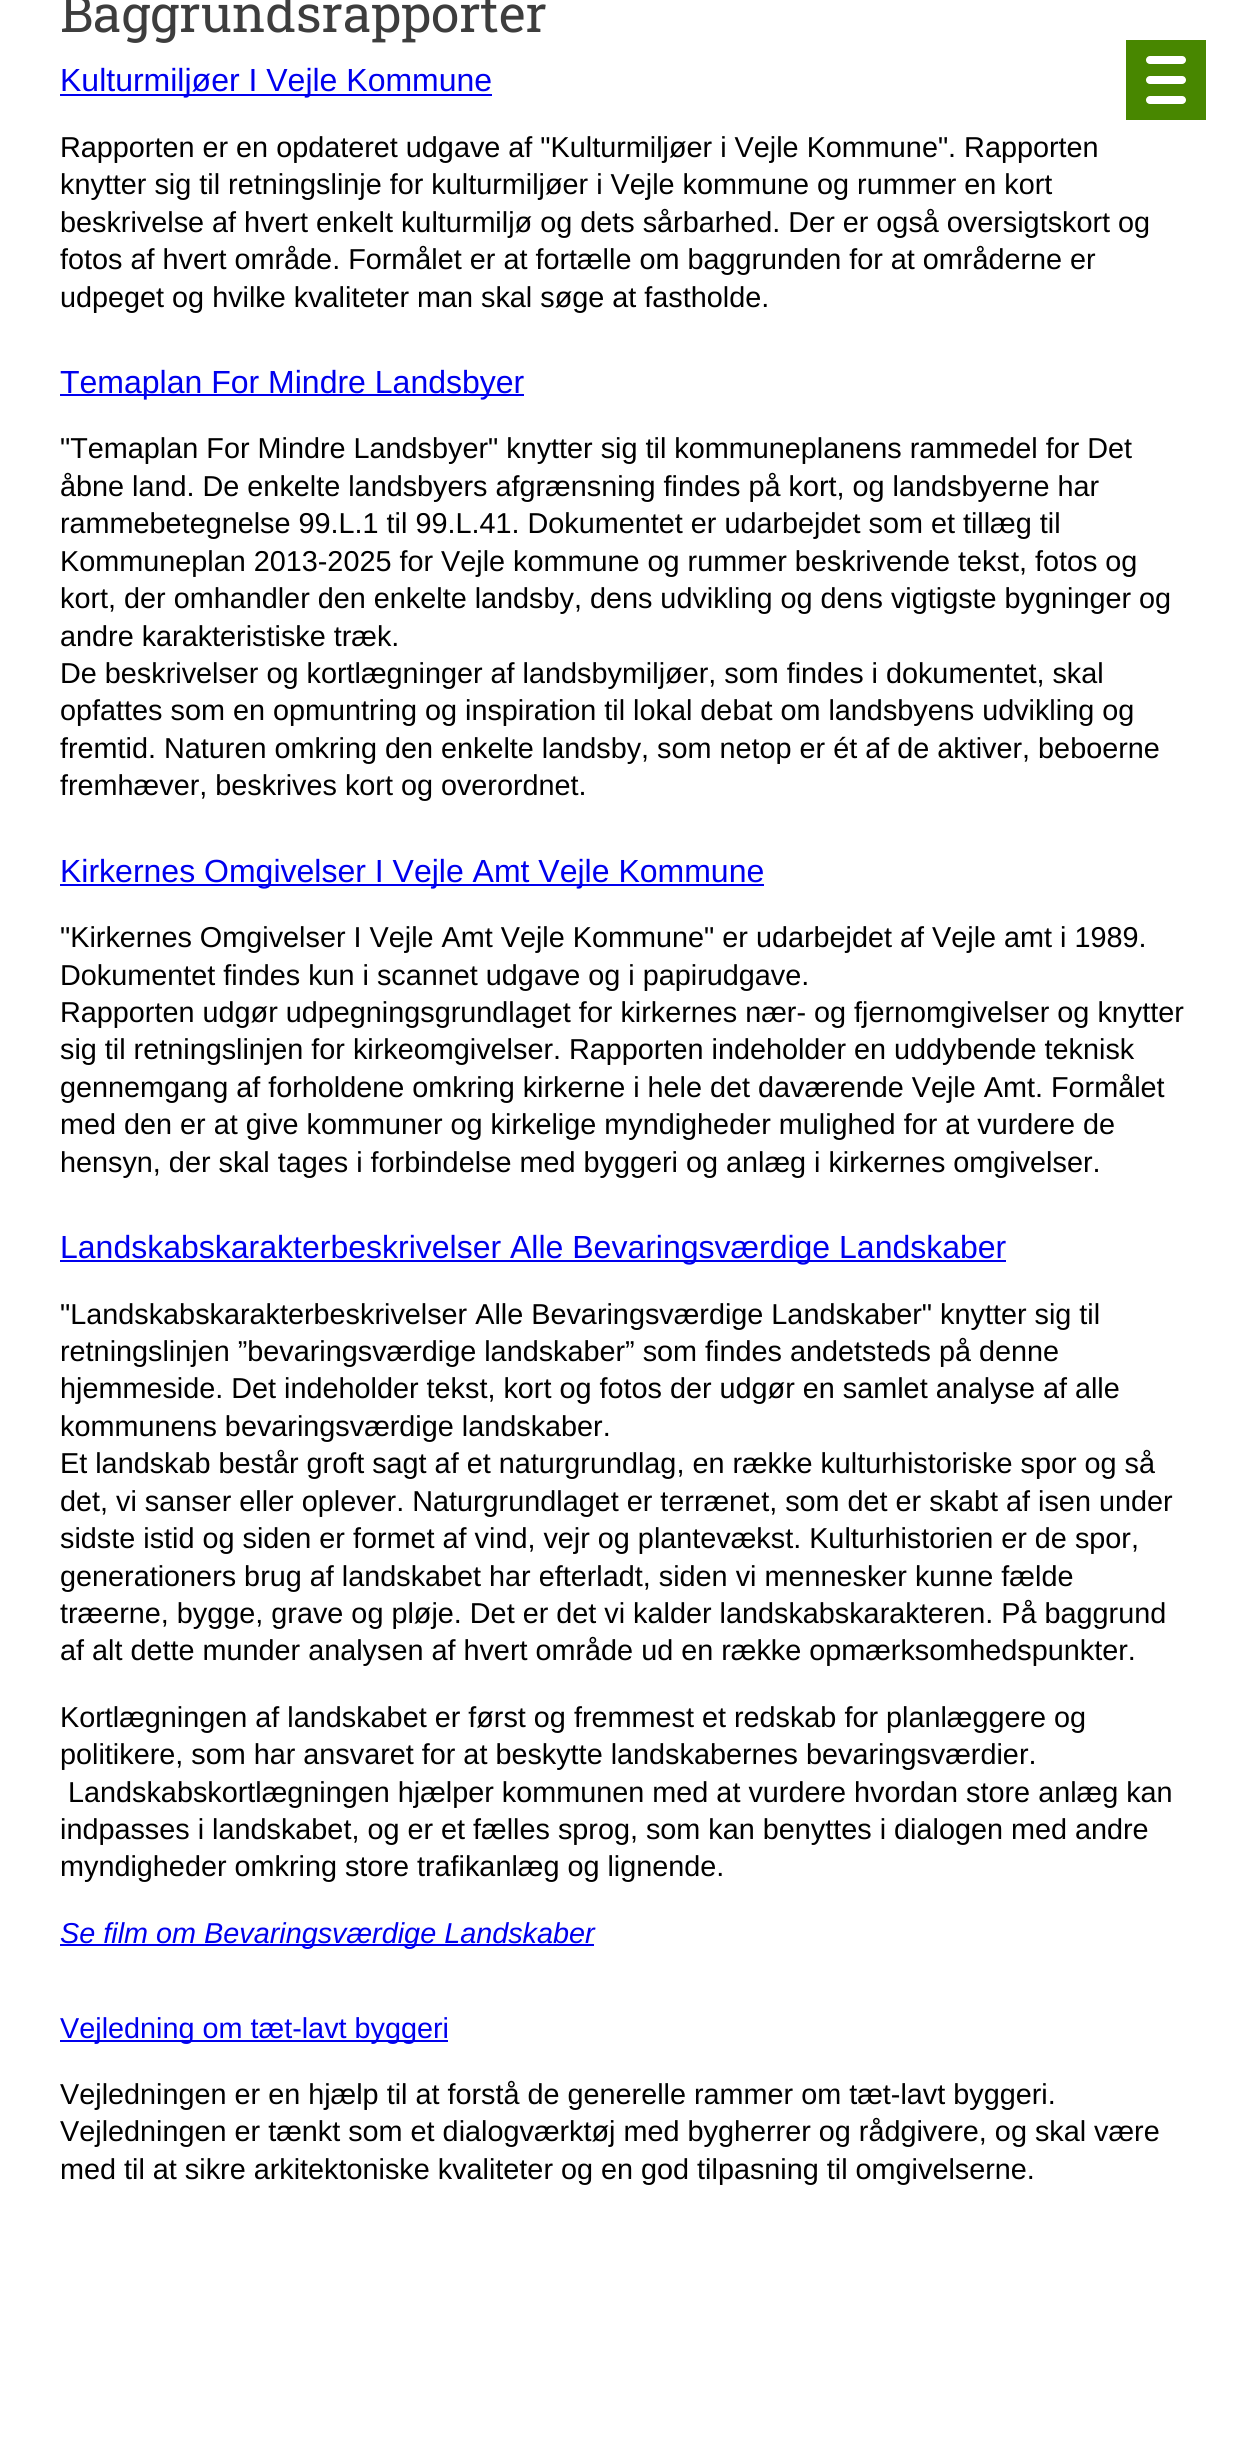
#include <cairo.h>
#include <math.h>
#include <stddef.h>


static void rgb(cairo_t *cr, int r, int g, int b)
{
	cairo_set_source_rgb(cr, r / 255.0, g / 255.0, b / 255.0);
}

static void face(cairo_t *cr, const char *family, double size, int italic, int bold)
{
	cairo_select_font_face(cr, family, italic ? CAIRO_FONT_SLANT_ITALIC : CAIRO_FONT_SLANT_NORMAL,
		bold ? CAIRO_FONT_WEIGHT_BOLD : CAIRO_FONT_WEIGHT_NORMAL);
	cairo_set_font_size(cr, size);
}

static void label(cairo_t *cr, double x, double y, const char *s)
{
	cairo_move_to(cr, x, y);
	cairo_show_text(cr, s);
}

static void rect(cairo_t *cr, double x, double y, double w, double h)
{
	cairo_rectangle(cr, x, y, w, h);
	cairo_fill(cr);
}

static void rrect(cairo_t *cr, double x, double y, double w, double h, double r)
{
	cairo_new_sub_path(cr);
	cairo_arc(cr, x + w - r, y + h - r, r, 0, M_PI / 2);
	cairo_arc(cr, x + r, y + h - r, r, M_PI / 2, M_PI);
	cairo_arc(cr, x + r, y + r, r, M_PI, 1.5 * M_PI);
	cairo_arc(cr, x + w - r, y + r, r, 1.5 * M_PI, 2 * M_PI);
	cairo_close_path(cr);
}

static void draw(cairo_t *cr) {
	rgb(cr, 255, 255, 255);
	cairo_paint(cr);
	face(cr, "Roboto Slab", 51.25, 0, 0);
	rgb(cr, 61, 61, 61);
	label(cr, 60, 32, "Baggrundsrapporter");
	rgb(cr, 0, 0, 238);
	rect(cr, 60, 94, 432, 2);
	face(cr, "Liberation Sans", 32, 0, 0);
	label(cr, 60, 91, "Kulturmiljøer I Vejle Kommune");
	face(cr, "Liberation Sans", 28.8, 0, 0);
	rgb(cr, 0, 0, 0);
	label(cr, 60, 157, "Rapporten er en opdateret udgave af \"Kulturmiljøer i Vejle Kommune\". Rapporten");
	label(cr, 60, 194, "knytter sig til retningslinje for kulturmiljøer i Vejle kommune og rummer en kort");
	label(cr, 60, 232, "beskrivelse af hvert enkelt kulturmiljø og dets sårbarhed. Der er også oversigtskort og");
	label(cr, 60, 269, "fotos af hvert område. Formålet er at fortælle om baggrunden for at områderne er");
	label(cr, 60, 307, "udpeget og hvilke kvaliteter man skal søge at fastholde.");
	rgb(cr, 0, 0, 238);
	rect(cr, 60, 394, 464, 2);
	face(cr, "Liberation Sans", 32, 0, 0);
	label(cr, 60, 393, "Temaplan For Mindre Landsbyer");
	face(cr, "Liberation Sans", 28.8, 0, 0);
	rgb(cr, 0, 0, 0);
	label(cr, 60, 458, "\"Temaplan For Mindre Landsbyer\" knytter sig til kommuneplanens rammedel for Det");
	label(cr, 60, 496, "åbne land. De enkelte landsbyers afgrænsning findes på kort, og landsbyerne har");
	label(cr, 60, 533, "rammebetegnelse 99.L.1 til 99.L.41. Dokumentet er udarbejdet som et tillæg til");
	label(cr, 60, 571, "Kommuneplan 2013-2025 for Vejle kommune og rummer beskrivende tekst, fotos og");
	label(cr, 60, 608, "kort, der omhandler den enkelte landsby, dens udvikling og dens vigtigste bygninger og");
	label(cr, 60, 646, "andre karakteristiske træk.");
	label(cr, 60, 683, "De beskrivelser og kortlægninger af landsbymiljøer, som findes i dokumentet, skal");
	label(cr, 60, 720, "opfattes som en opmuntring og inspiration til lokal debat om landsbyens udvikling og");
	label(cr, 60, 758, "fremtid. Naturen omkring den enkelte landsby, som netop er ét af de aktiver, beboerne");
	label(cr, 60, 795, "fremhæver, beskrives kort og overordnet.");
	rgb(cr, 0, 0, 238);
	rect(cr, 60, 884, 704, 2);
	face(cr, "Liberation Sans", 32, 0, 0);
	label(cr, 60, 882, "Kirkernes Omgivelser I Vejle Amt Vejle Kommune");
	face(cr, "Liberation Sans", 28.8, 0, 0);
	rgb(cr, 0, 0, 0);
	label(cr, 60, 947, "\"Kirkernes Omgivelser I Vejle Amt Vejle Kommune\" er udarbejdet af Vejle amt i 1989.");
	label(cr, 60, 985, "Dokumentet findes kun i scannet udgave og i papirudgave.");
	label(cr, 60, 1022, "Rapporten udgør udpegningsgrundlaget for kirkernes nær- og fjernomgivelser og knytter");
	label(cr, 60, 1059, "sig til retningslinjen for kirkeomgivelser. Rapporten indeholder en uddybende teknisk");
	label(cr, 60, 1097, "gennemgang af forholdene omkring kirkerne i hele det daværende Vejle Amt. Formålet");
	label(cr, 60, 1134, "med den er at give kommuner og kirkelige myndigheder mulighed for at vurdere de");
	label(cr, 60, 1172, "hensyn, der skal tages i forbindelse med byggeri og anlæg i kirkernes omgivelser.");
	rgb(cr, 0, 0, 238);
	rect(cr, 60, 1260, 946, 2);
	face(cr, "Liberation Sans", 32, 0, 0);
	label(cr, 60, 1258, "Landskabskarakterbeskrivelser Alle Bevaringsværdige Landskaber");
	face(cr, "Liberation Sans", 28.8, 0, 0);
	rgb(cr, 0, 0, 0);
	label(cr, 60, 1324, "\"Landskabskarakterbeskrivelser Alle Bevaringsværdige Landskaber\" knytter sig til");
	label(cr, 60, 1361, "retningslinjen ”bevaringsværdige landskaber” som findes andetsteds på denne");
	label(cr, 60, 1398, "hjemmeside. Det indeholder tekst, kort og fotos der udgør en samlet analyse af alle");
	label(cr, 60, 1436, "kommunens bevaringsværdige landskaber.");
	label(cr, 60, 1473, "Et landskab består groft sagt af et naturgrundlag, en række kulturhistoriske spor og så");
	label(cr, 60, 1511, "det, vi sanser eller oplever. Naturgrundlaget er terrænet, som det er skabt af isen under");
	label(cr, 60, 1548, "sidste istid og siden er formet af vind, vejr og plantevækst. Kulturhistorien er de spor,");
	label(cr, 60, 1586, "generationers brug af landskabet har efterladt, siden vi mennesker kunne fælde");
	label(cr, 60, 1623, "træerne, bygge, grave og pløje. Det er det vi kalder landskabskarakteren. På baggrund");
	label(cr, 60, 1660, "af alt dette munder analysen af hvert område ud en række opmærksomhedspunkter.");
	label(cr, 60, 1727, "Kortlægningen af landskabet er først og fremmest et redskab for planlæggere og");
	label(cr, 60, 1764, "politikere, som har ansvaret for at beskytte landskabernes bevaringsværdier.");
	label(cr, 68, 1802, "Landskabskortlægningen hjælper kommunen med at vurdere hvordan store anlæg kan");
	label(cr, 60, 1839, "indpasses i landskabet, og er et fælles sprog, som kan benyttes i dialogen med andre");
	label(cr, 60, 1876, "myndigheder omkring store trafikanlæg og lignende.");
	rgb(cr, 0, 0, 238);
	rect(cr, 60, 1944, 534, 2);
	face(cr, "Liberation Sans", 28.8, 1, 0);
	label(cr, 60, 1943, "Se film om Bevaringsværdige Landskaber");
	rect(cr, 60, 2040, 388, 2);
	face(cr, "Liberation Sans", 28.8, 0, 0);
	label(cr, 60, 2038, "Vejledning om tæt-lavt byggeri");
	rgb(cr, 0, 0, 0);
	label(cr, 60, 2104, "Vejledningen er en hjælp til at forstå de generelle rammer om tæt-lavt byggeri.");
	label(cr, 60, 2141, "Vejledningen er tænkt som et dialogværktøj med bygherrer og rådgivere, og skal være");
	label(cr, 60, 2179, "med til at sikre arkitektoniske kvaliteter og en god tilpasning til omgivelserne.");
	rgb(cr, 72, 135, 0);
	rect(cr, 1126, 40, 80, 80);
	rgb(cr, 255, 255, 255);
	rrect(cr, 1146, 56, 40, 8, 4);
	cairo_fill(cr);
	rrect(cr, 1146, 76, 40, 8, 4);
	cairo_fill(cr);
	rrect(cr, 1146, 96, 40, 8, 4);
	cairo_fill(cr);
}

int main(void) {
	cairo_surface_t *surface = cairo_image_surface_create(CAIRO_FORMAT_RGB24, 1245, 2456);
	cairo_t *cr = cairo_create(surface);
	cairo_font_options_t *options = cairo_font_options_create();
	cairo_font_options_set_hint_metrics(options, CAIRO_HINT_METRICS_OFF);
	cairo_font_options_set_hint_style(options, CAIRO_HINT_STYLE_NONE);
	cairo_set_font_options(cr, options);
	cairo_set_miter_limit(cr, 4);
	draw(cr);
	cairo_surface_write_to_png(surface, "render.png");
	cairo_font_options_destroy(options);
	cairo_destroy(cr);
	cairo_surface_destroy(surface);
	return 0;
}
